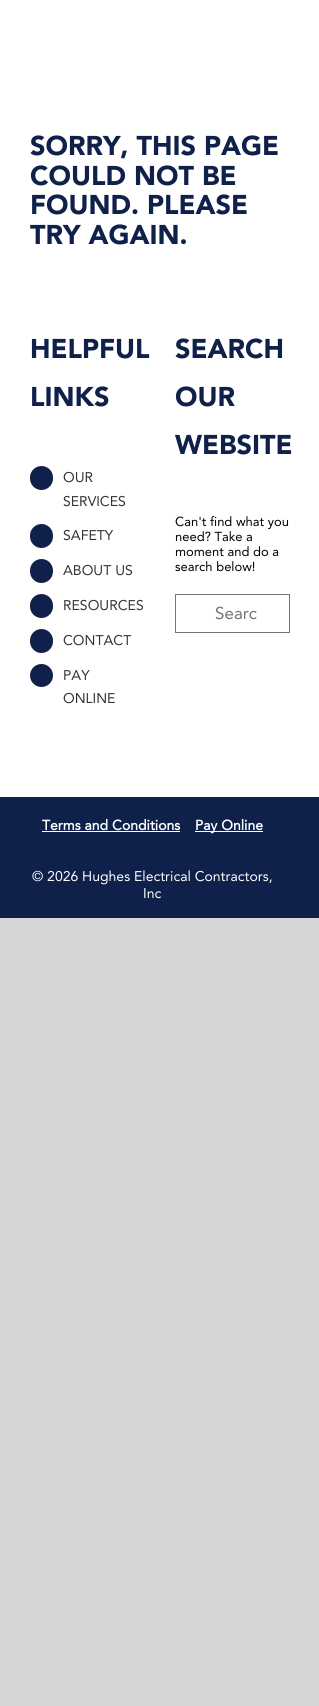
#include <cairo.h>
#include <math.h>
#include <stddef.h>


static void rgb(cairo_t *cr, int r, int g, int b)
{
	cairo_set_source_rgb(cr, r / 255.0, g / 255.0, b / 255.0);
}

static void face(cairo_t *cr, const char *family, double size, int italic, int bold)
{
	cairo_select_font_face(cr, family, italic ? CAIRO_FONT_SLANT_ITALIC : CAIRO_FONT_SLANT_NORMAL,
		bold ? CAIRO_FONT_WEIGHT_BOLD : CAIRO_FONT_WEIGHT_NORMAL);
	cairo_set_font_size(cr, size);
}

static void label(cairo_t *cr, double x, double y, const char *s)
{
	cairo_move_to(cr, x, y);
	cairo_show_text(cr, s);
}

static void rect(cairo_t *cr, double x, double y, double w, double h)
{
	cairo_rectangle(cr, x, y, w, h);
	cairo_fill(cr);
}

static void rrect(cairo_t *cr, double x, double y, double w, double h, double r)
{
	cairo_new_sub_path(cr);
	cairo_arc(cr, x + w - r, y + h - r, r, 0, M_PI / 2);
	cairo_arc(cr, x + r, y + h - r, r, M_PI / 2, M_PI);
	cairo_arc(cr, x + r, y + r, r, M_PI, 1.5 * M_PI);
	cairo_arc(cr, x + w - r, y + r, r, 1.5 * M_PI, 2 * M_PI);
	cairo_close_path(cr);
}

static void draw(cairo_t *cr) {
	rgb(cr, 215, 214, 214);
	cairo_paint(cr);
	rgb(cr, 255, 255, 255);
	rect(cr, 0, 0, 319, 797);
	face(cr, "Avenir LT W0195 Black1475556 Black", 27, 0, 0);
	rgb(cr, 15, 33, 75);
	label(cr, 30, 155, "SORRY, THIS PAGE");
	label(cr, 30, 185, "COULD NOT BE");
	label(cr, 30, 214, "FOUND. PLEASE");
	label(cr, 30, 244, "TRY AGAIN.");
	label(cr, 30, 358, "HELPFUL");
	label(cr, 30, 406, "LINKS");
	rrect(cr, 30, 466, 23, 24, 11.5);
	cairo_fill(cr);
	face(cr, "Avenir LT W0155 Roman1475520", 14, 0, 0);
	rgb(cr, 51, 51, 51);
	label(cr, 63, 482, "OUR");
	label(cr, 63, 506, "SERVICES");
	rgb(cr, 15, 33, 75);
	rrect(cr, 30, 524, 23, 24, 11.5);
	cairo_fill(cr);
	rgb(cr, 51, 51, 51);
	label(cr, 63, 540, "SAFETY");
	rgb(cr, 15, 33, 75);
	rrect(cr, 30, 559, 23, 24, 11.5);
	cairo_fill(cr);
	rgb(cr, 51, 51, 51);
	label(cr, 63, 575, "ABOUT US");
	rgb(cr, 15, 33, 75);
	rrect(cr, 30, 594, 23, 24, 11.5);
	cairo_fill(cr);
	rgb(cr, 51, 51, 51);
	label(cr, 63, 610, "RESOURCES");
	rgb(cr, 15, 33, 75);
	rrect(cr, 30, 629, 23, 24, 11.5);
	cairo_fill(cr);
	rgb(cr, 51, 51, 51);
	label(cr, 63, 645, "CONTACT");
	rgb(cr, 15, 33, 75);
	cairo_new_path(cr);
	cairo_arc(cr, 41.5, 675.5, 11.5, 0, 2 * M_PI);
	cairo_fill(cr);
	rgb(cr, 51, 51, 51);
	label(cr, 63, 680, "PAY");
	label(cr, 63, 703, "ONLINE");
	face(cr, "Avenir LT W0195 Black1475556 Black", 27, 0, 0);
	rgb(cr, 15, 33, 75);
	label(cr, 175, 358, "SEARCH");
	label(cr, 175, 406, "OUR");
	label(cr, 175, 454, "WEBSITE");
	face(cr, "Avenir LT W0155 Roman1475520", 13, 0, 0);
	rgb(cr, 0, 0, 0);
	label(cr, 175, 526, "Can't find what you");
	label(cr, 175, 541, "need? Take a");
	label(cr, 175, 556, "moment and do a");
	label(cr, 175, 571, "search below!");
	cairo_rectangle(cr, 175.5, 594.5, 114, 38);
	rgb(cr, 116, 118, 119);
	cairo_set_line_width(cr, 1);
	cairo_stroke(cr);
	face(cr, "Avenir LT W0155 Roman1475520", 17, 0, 0);
	label(cr, 215, 619, "Searc");
	rgb(cr, 15, 33, 75);
	rect(cr, 0, 797, 319, 121);
	face(cr, "Avenir LT W0155 Roman1475520", 14, 0, 1);
	rgb(cr, 255, 255, 255);
	label(cr, 42, 830, "Terms and Conditions");
	rect(cr, 42, 831, 138, 1);
	rect(cr, 195, 831, 68, 1);
	label(cr, 195, 830, "Pay Online");
	face(cr, "Avenir LT W0155 Roman1475520", 14, 0, 0);
	label(cr, 32, 881, "© 2026 Hughes Electrical Contractors,");
	label(cr, 143, 898, "Inc");
}

int main(void) {
	cairo_surface_t *surface = cairo_image_surface_create(CAIRO_FORMAT_RGB24, 319, 1706);
	cairo_t *cr = cairo_create(surface);
	cairo_font_options_t *options = cairo_font_options_create();
	cairo_font_options_set_hint_metrics(options, CAIRO_HINT_METRICS_OFF);
	cairo_font_options_set_hint_style(options, CAIRO_HINT_STYLE_NONE);
	cairo_set_font_options(cr, options);
	cairo_set_miter_limit(cr, 4);
	draw(cr);
	cairo_surface_write_to_png(surface, "render.png");
	cairo_font_options_destroy(options);
	cairo_destroy(cr);
	cairo_surface_destroy(surface);
	return 0;
}
